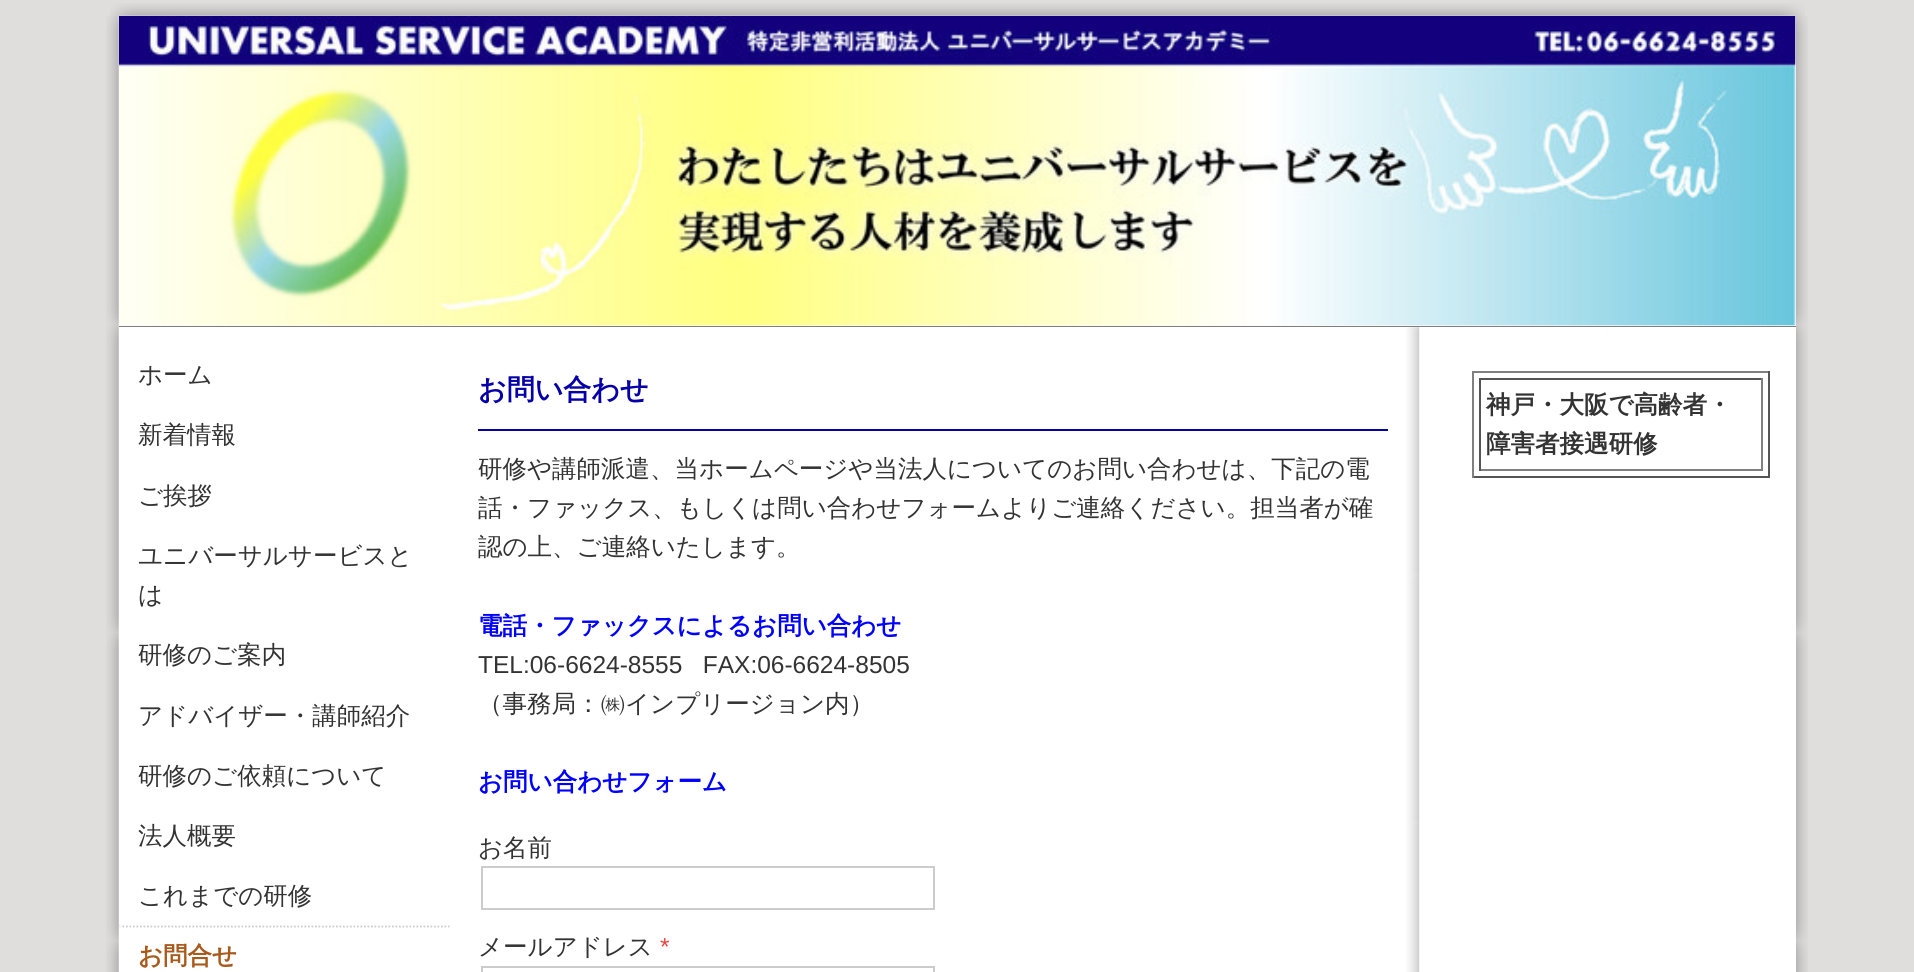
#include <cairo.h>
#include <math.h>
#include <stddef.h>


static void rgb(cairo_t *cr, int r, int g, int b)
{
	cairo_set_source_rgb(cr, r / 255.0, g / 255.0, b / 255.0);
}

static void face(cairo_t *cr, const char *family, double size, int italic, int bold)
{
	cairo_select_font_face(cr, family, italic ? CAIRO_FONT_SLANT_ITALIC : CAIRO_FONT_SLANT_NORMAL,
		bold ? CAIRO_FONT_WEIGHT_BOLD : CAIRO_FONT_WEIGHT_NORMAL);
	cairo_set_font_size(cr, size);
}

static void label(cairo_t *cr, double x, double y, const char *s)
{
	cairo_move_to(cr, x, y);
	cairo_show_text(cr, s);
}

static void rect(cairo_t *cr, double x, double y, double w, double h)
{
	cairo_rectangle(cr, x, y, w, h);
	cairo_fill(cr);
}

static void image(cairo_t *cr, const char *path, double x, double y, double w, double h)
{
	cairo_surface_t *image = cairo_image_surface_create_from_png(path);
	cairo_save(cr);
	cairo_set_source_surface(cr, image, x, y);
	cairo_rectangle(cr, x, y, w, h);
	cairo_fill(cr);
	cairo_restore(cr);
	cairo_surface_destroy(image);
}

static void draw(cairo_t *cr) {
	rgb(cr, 224, 221, 221);
	cairo_paint(cr);
	image(cr, "image0.png", 110, 3, 1695, 13);
	image(cr, "image1.png", 106, 15, 1702, 957);
	rgb(cr, 127, 127, 127);
	rect(cr, 119, 326, 1677, 1);
	rgb(cr, 252, 248, 248);
	rect(cr, 119, 16, 1677, 310);
	image(cr, "image2.png", 119, 15, 1677, 311);
	rgb(cr, 255, 255, 255);
	rect(cr, 119, 327, 1677, 645);
	image(cr, "image3.png", 1406, 327, 14, 645);
	face(cr, "WenQuanYi Zen Hei Medium", 24.5, 0, 0);
	rgb(cr, 51, 51, 51);
	label(cr, 138, 383, "ホーム");
	label(cr, 138, 443, "新着情報");
	label(cr, 138, 504, "ご挨拶");
	label(cr, 138, 564, "ユニバーサルサービスと");
	label(cr, 138, 603, "は");
	label(cr, 138, 663, "研修のご案内");
	label(cr, 138, 724, "アドバイザー・講師紹介");
	label(cr, 138, 784, "研修のご依頼について");
	label(cr, 138, 844, "法人概要");
	label(cr, 138, 904, "これまでの研修");
	cairo_new_path(cr);
	cairo_move_to(cr, 119, 926.5);
	cairo_line_to(cr, 451.5, 926.5);
	rgb(cr, 204, 204, 204);
	cairo_set_line_width(cr, 1.8);
	cairo_set_dash(cr, (double[]){1.75, 1.75}, 2, 0);
	cairo_stroke(cr);
	cairo_new_path(cr);
	cairo_move_to(cr, 450.5, 926);
	cairo_line_to(cr, 450.5, 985);
	rgb(cr, 255, 255, 255);
	cairo_stroke(cr);
	cairo_new_path(cr);
	cairo_move_to(cr, 120, 926);
	cairo_line_to(cr, 120, 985);
	cairo_stroke(cr);
	face(cr, "WenQuanYi Zen Hei", 24.5, 0, 1);
	rgb(cr, 168, 90, 29);
	label(cr, 138, 964, "お問合せ");
	face(cr, "WenQuanYi Zen Hei", 28, 0, 1);
	rgb(cr, 6, 0, 168);
	label(cr, 478, 399, "お問い合わせ");
	rect(cr, 478, 429, 910, 2);
	face(cr, "WenQuanYi Zen Hei Medium", 24.5, 0, 0);
	rgb(cr, 51, 51, 51);
	label(cr, 478, 477, "研修や講師派遣、当ホームページや当法人についてのお問い合わせは、下記の電");
	label(cr, 478, 516, "話・ファックス、もしくは問い合わせフォームよりご連絡ください。担当者が確");
	label(cr, 478, 555, "認の上、ご連絡いたします。");
	face(cr, "WenQuanYi Zen Hei", 24.5, 0, 1);
	rgb(cr, 0, 0, 255);
	label(cr, 478, 634, "電話・ファックスによるお問い合わせ");
	face(cr, "Liberation Sans", 24.5, 0, 0);
	rgb(cr, 51, 51, 51);
	label(cr, 478, 673, "TEL:06-6624-8555   FAX:06-6624-8505");
	face(cr, "WenQuanYi Zen Hei Medium", 24.5, 0, 0);
	label(cr, 478, 712, "（事務局：㈱インプリージョン内）");
	face(cr, "WenQuanYi Zen Hei", 24.5, 0, 1);
	rgb(cr, 0, 0, 255);
	label(cr, 478, 790, "お問い合わせフォーム");
	face(cr, "WenQuanYi Zen Hei Medium", 24.5, 0, 0);
	rgb(cr, 51, 51, 51);
	label(cr, 478, 856, "お名前");
	cairo_rectangle(cr, 482, 867, 452, 42);
	rgb(cr, 204, 204, 204);
	cairo_set_line_width(cr, 2);
	cairo_set_dash(cr, NULL, 0, 0);
	cairo_stroke(cr);
	rgb(cr, 51, 51, 51);
	label(cr, 478, 955, "メールアドレス");
	face(cr, "Liberation Sans", 24.5, 0, 0);
	rgb(cr, 235, 67, 62);
	label(cr, 660, 955, "*");
	cairo_rectangle(cr, 482, 967, 452, 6);
	rgb(cr, 204, 204, 204);
	cairo_stroke(cr);
	rgb(cr, 128, 128, 128);
	rect(cr, 1472, 371, 297, 2);
	rgb(cr, 85, 85, 85);
	rect(cr, 1768, 371, 2, 107);
	rect(cr, 1472, 476, 297, 2);
	rgb(cr, 128, 128, 128);
	rect(cr, 1472, 371, 2, 107);
	rgb(cr, 85, 85, 85);
	rect(cr, 1479, 378, 283, 2);
	rgb(cr, 128, 128, 128);
	rect(cr, 1761, 378, 2, 93);
	rect(cr, 1479, 469, 283, 2);
	rgb(cr, 85, 85, 85);
	rect(cr, 1479, 378, 2, 93);
	face(cr, "WenQuanYi Zen Hei", 24.5, 0, 1);
	rgb(cr, 51, 51, 51);
	label(cr, 1486, 413, "神戸・大阪で高齢者・");
	label(cr, 1486, 452, "障害者接遇研修");
}

int main(void) {
	cairo_surface_t *surface = cairo_image_surface_create(CAIRO_FORMAT_RGB24, 1914, 972);
	cairo_t *cr = cairo_create(surface);
	cairo_font_options_t *options = cairo_font_options_create();
	cairo_font_options_set_hint_metrics(options, CAIRO_HINT_METRICS_OFF);
	cairo_font_options_set_hint_style(options, CAIRO_HINT_STYLE_NONE);
	cairo_set_font_options(cr, options);
	cairo_set_miter_limit(cr, 4);
	draw(cr);
	cairo_surface_write_to_png(surface, "render.png");
	cairo_font_options_destroy(options);
	cairo_destroy(cr);
	cairo_surface_destroy(surface);
	return 0;
}
